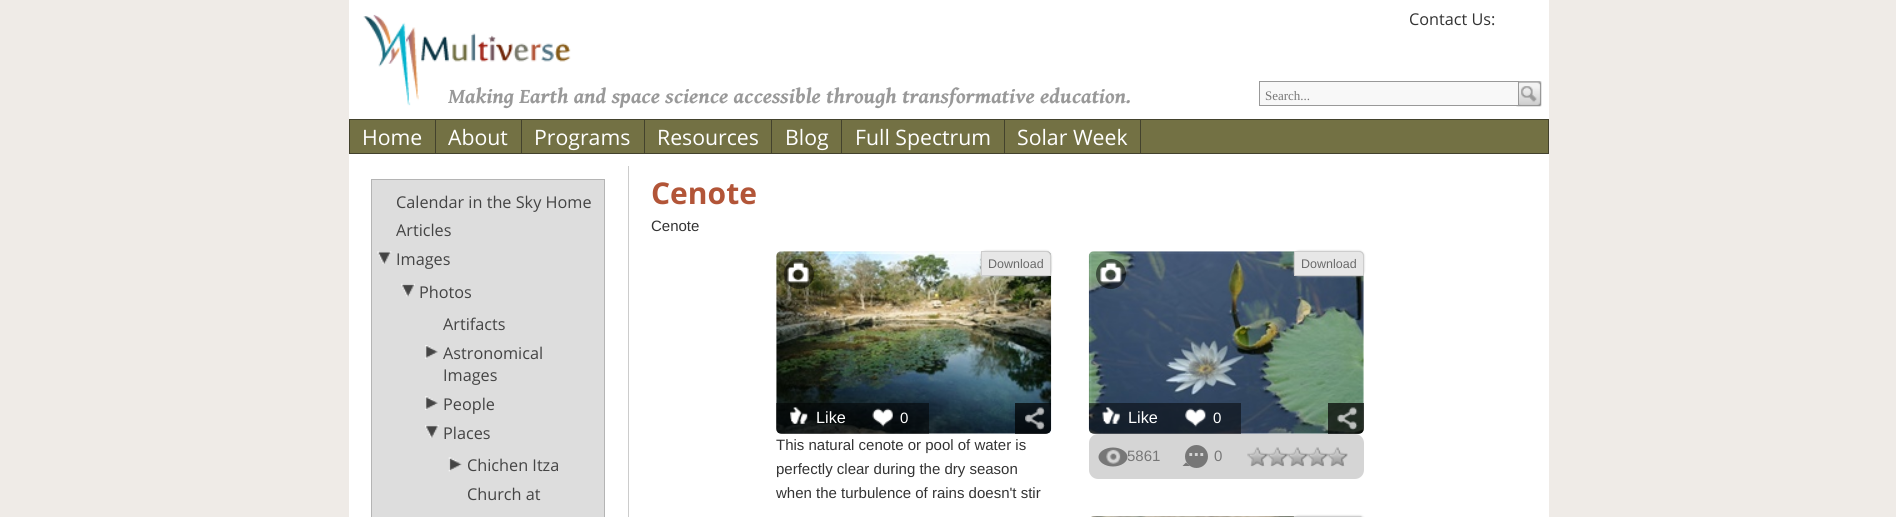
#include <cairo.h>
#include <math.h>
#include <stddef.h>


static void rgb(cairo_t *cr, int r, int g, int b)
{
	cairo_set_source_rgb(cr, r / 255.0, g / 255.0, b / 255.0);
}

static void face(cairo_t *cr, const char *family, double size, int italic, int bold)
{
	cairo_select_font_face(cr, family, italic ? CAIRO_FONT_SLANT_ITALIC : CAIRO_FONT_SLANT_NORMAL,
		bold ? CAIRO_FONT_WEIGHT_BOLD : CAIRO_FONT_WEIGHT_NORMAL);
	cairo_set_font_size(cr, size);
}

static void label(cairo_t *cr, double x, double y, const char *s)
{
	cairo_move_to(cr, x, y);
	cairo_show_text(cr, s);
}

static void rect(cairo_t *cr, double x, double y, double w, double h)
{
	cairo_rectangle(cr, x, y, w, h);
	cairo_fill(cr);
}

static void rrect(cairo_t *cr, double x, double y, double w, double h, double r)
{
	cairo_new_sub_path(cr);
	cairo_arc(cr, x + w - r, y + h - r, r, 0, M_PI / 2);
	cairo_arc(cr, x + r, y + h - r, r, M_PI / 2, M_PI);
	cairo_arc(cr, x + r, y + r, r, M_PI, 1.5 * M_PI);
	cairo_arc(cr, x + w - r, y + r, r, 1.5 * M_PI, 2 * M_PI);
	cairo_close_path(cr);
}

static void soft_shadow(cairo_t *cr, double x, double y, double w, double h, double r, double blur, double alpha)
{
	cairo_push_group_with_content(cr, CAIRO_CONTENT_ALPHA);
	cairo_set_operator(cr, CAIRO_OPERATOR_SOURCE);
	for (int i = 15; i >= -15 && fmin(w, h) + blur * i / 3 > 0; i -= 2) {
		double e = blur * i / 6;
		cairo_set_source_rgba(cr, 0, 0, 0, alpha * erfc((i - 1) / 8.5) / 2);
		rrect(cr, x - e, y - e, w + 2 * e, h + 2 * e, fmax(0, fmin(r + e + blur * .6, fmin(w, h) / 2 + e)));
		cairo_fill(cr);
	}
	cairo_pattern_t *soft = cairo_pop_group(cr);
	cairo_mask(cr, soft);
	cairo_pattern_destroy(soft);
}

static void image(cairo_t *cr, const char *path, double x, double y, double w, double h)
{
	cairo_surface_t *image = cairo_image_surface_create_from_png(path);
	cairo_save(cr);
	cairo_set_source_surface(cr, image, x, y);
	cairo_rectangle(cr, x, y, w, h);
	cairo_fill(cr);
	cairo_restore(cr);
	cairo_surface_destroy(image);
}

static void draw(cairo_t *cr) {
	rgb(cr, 239, 235, 231);
	cairo_paint(cr);
	rgb(cr, 255, 255, 255);
	rect(cr, 349, 0, 1200, 517);
	image(cr, "image0.png", 363, 14, 208, 92);
	face(cr, "Open Sans", 16.25, 0, 0);
	rgb(cr, 51, 51, 51);
	label(cr, 1409, 25, "Contact Us:");
	face(cr, "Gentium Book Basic", 21.25, 1, 1);
	rgb(cr, 153, 153, 153);
	label(cr, 448, 103, "Making Earth and space science accessible through transformative education.");
	image(cr, "image1.png", 1516, 81, 26, 26);
	rgb(cr, 248, 248, 248);
	cairo_rectangle(cr, 1259.5, 81.5, 259, 24);
	cairo_fill_preserve(cr);
	rgb(cr, 153, 153, 153);
	cairo_set_line_width(cr, 1);
	cairo_stroke(cr);
	face(cr, "Liberation Serif", 13, 0, 0);
	rgb(cr, 119, 119, 119);
	label(cr, 1265, 100, "Search...");
	rgb(cr, 115, 113, 68);
	cairo_rectangle(cr, 349.5, 119.5, 1199, 34);
	cairo_fill_preserve(cr);
	rgb(cr, 67, 66, 45);
	cairo_stroke(cr);
	rect(cr, 435, 120, 1, 34);
	face(cr, "Open Sans", 21.25, 0, 0);
	rgb(cr, 255, 255, 255);
	label(cr, 362, 145, "Home");
	rgb(cr, 67, 66, 45);
	rect(cr, 521, 120, 1, 34);
	rgb(cr, 255, 255, 255);
	label(cr, 448, 145, "About");
	rgb(cr, 67, 66, 45);
	rect(cr, 644, 120, 1, 34);
	rgb(cr, 255, 255, 255);
	label(cr, 534, 145, "Programs");
	rgb(cr, 67, 66, 45);
	rect(cr, 771, 120, 1, 34);
	rgb(cr, 255, 255, 255);
	label(cr, 657, 145, "Resources");
	rgb(cr, 67, 66, 45);
	rect(cr, 841, 120, 1, 34);
	rgb(cr, 255, 255, 255);
	label(cr, 785, 145, "Blog");
	rgb(cr, 67, 66, 45);
	rect(cr, 1004, 120, 1, 34);
	rgb(cr, 255, 255, 255);
	label(cr, 855, 145, "Full Spectrum");
	rgb(cr, 67, 66, 45);
	rect(cr, 1140, 120, 1, 34);
	rgb(cr, 255, 255, 255);
	label(cr, 1017, 145, "Solar Week");
	rgb(cr, 221, 221, 221);
	cairo_rectangle(cr, 371.5, 179.5, 233, 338);
	cairo_fill_preserve(cr);
	rgb(cr, 180, 180, 180);
	cairo_stroke(cr);
	face(cr, "Open Sans", 16.25, 0, 0);
	rgb(cr, 68, 68, 68);
	label(cr, 396, 208, "Calendar in the Sky Home");
	label(cr, 396, 236, "Articles");
	image(cr, "image2.png", 377, 251, 15, 13);
	label(cr, 396, 265, "Images");
	image(cr, "image3.png", 401, 283, 14, 14);
	label(cr, 419, 298, "Photos");
	label(cr, 443, 330, "Artifacts");
	image(cr, "image4.png", 425, 345, 13, 14);
	label(cr, 443, 359, "Astronomical");
	label(cr, 443, 381, "Images");
	image(cr, "image5.png", 425, 396, 13, 14);
	label(cr, 443, 410, "People");
	image(cr, "image6.png", 425, 425, 14, 13);
	label(cr, 443, 439, "Places");
	image(cr, "image7.png", 448, 457, 14, 15);
	label(cr, 467, 471, "Chichen Itza");
	label(cr, 467, 500, "Church at");
	rgb(cr, 204, 204, 204);
	rect(cr, 628, 166, 1, 351);
	face(cr, "Open Sans", 30, 0, 1);
	rgb(cr, 178, 85, 56);
	label(cr, 651, 204, "Cenote");
	face(cr, "Liberation Sans", 15, 0, 0);
	rgb(cr, 51, 51, 51);
	label(cr, 651, 231, "Cenote");
	rgb(cr, 252, 252, 252);
	rrect(cr, 776, 251, 275, 183, 5);
	cairo_fill(cr);
	image(cr, "image8.png", 776, 251, 276, 183);
	cairo_set_source_rgba(cr, 0, 0, 0, 0.5);
	cairo_arc(cr, 799, 274, 15, 0, 2 * M_PI);
	cairo_fill(cr);
	image(cr, "image9.png", 787, 262, 22, 21);
	rgb(cr, 205, 205, 205);
	soft_shadow(cr, 981, 251, 70, 25, 5, 1, 1);
	rgb(cr, 231, 231, 231);
	cairo_new_path(cr);
	cairo_move_to(cr, 981.5, 251.5);
	cairo_line_to(cr, 1046, 251.5);
	cairo_curve_to(cr, 1048.5, 251.5, 1050.5, 253.5, 1050.5, 256);
	cairo_line_to(cr, 1050.5, 275.5);
	cairo_line_to(cr, 981.5, 275.5);
	cairo_close_path(cr);
	cairo_fill_preserve(cr);
	rgb(cr, 205, 205, 205);
	cairo_stroke(cr);
	face(cr, "Liberation Sans", 12.5, 0, 0);
	rgb(cr, 105, 105, 105);
	label(cr, 988, 268, "Download");
	cairo_set_source_rgba(cr, 0, 0, 0, 0.5);
	cairo_new_path(cr);
	cairo_move_to(cr, 776, 403);
	cairo_line_to(cr, 929, 403);
	cairo_line_to(cr, 929, 434);
	cairo_line_to(cr, 782, 434);
	cairo_curve_to(cr, 778.5, 434, 776, 431.5, 776, 428);
	cairo_close_path(cr);
	cairo_fill(cr);
	image(cr, "image10.png", 790, 407, 18, 17);
	face(cr, "Liberation Sans", 16.25, 0, 0);
	rgb(cr, 255, 255, 255);
	label(cr, 816, 423, "Like");
	image(cr, "image11.png", 872, 408, 21, 19);
	face(cr, "Liberation Sans", 15, 0, 0);
	label(cr, 900, 423, "0");
	cairo_set_source_rgba(cr, 0, 0, 0, 0.7);
	cairo_new_path(cr);
	cairo_move_to(cr, 1015, 403);
	cairo_line_to(cr, 1051, 403);
	cairo_line_to(cr, 1051, 428);
	cairo_curve_to(cr, 1051, 431.5, 1048.5, 434, 1045, 434);
	cairo_line_to(cr, 1015, 434);
	cairo_close_path(cr);
	cairo_fill(cr);
	image(cr, "image12.png", 1025, 407, 20, 23);
	rgb(cr, 51, 51, 51);
	label(cr, 776, 450, "This natural cenote or pool of water is");
	label(cr, 776, 474, "perfectly clear during the dry season");
	label(cr, 776, 498, "when the turbulence of rains doesn't stir");
	rgb(cr, 252, 252, 252);
	rrect(cr, 1089, 251, 275, 183, 5);
	cairo_fill(cr);
	image(cr, "image13.png", 1088, 251, 276, 183);
	cairo_set_source_rgba(cr, 0, 0, 0, 0.5);
	cairo_arc(cr, 1111, 274, 15, 0, 2 * M_PI);
	cairo_fill(cr);
	image(cr, "image14.png", 1100, 262, 22, 21);
	rgb(cr, 205, 205, 205);
	soft_shadow(cr, 1294, 251, 70, 25, 5, 1, 1);
	rgb(cr, 231, 231, 231);
	cairo_new_path(cr);
	cairo_move_to(cr, 1294.5, 251.5);
	cairo_line_to(cr, 1359, 251.5);
	cairo_curve_to(cr, 1361.5, 251.5, 1363.5, 253.5, 1363.5, 256);
	cairo_line_to(cr, 1363.5, 275.5);
	cairo_line_to(cr, 1294.5, 275.5);
	cairo_close_path(cr);
	cairo_fill_preserve(cr);
	rgb(cr, 205, 205, 205);
	cairo_stroke(cr);
	face(cr, "Liberation Sans", 12.5, 0, 0);
	rgb(cr, 105, 105, 105);
	label(cr, 1301, 268, "Download");
	cairo_set_source_rgba(cr, 0, 0, 0, 0.5);
	cairo_new_path(cr);
	cairo_move_to(cr, 1089, 403);
	cairo_line_to(cr, 1241, 403);
	cairo_line_to(cr, 1241, 434);
	cairo_line_to(cr, 1095, 434);
	cairo_curve_to(cr, 1091.5, 434, 1089, 431.5, 1089, 428);
	cairo_close_path(cr);
	cairo_fill(cr);
	image(cr, "image15.png", 1102, 407, 18, 17);
	face(cr, "Liberation Sans", 16.25, 0, 0);
	rgb(cr, 255, 255, 255);
	label(cr, 1128, 423, "Like");
	image(cr, "image16.png", 1185, 408, 21, 19);
	face(cr, "Liberation Sans", 15, 0, 0);
	label(cr, 1213, 423, "0");
	cairo_set_source_rgba(cr, 0, 0, 0, 0.7);
	cairo_new_path(cr);
	cairo_move_to(cr, 1328, 403);
	cairo_line_to(cr, 1364, 403);
	cairo_line_to(cr, 1364, 428);
	cairo_curve_to(cr, 1364, 431.5, 1361.5, 434, 1358, 434);
	cairo_line_to(cr, 1328, 434);
	cairo_close_path(cr);
	cairo_fill(cr);
	image(cr, "image17.png", 1337, 407, 21, 23);
	rgb(cr, 213, 213, 213);
	rrect(cr, 1089, 434, 275, 45, 9);
	cairo_fill(cr);
	rgb(cr, 119, 119, 119);
	cairo_new_path(cr);
	cairo_move_to(cr, 1113, 447.5);
	cairo_curve_to(cr, 1121, 447.5, 1127.5, 452, 1127.5, 457);
	cairo_curve_to(cr, 1127.5, 462, 1121, 466.5, 1113, 466.5);
	cairo_curve_to(cr, 1105, 466.5, 1098.5, 462, 1098.5, 457);
	cairo_curve_to(cr, 1098.5, 452, 1105, 447.5, 1113, 447.5);
	cairo_close_path(cr);
	cairo_fill(cr);
	image(cr, "image18.png", 1106, 449, 15, 15);
	label(cr, 1127, 461, "5861");
	cairo_new_path(cr);
	cairo_arc(cr, 1196.5, 456.5, 11.5, 0, 2 * M_PI);
	cairo_fill(cr);
	face(cr, "Liberation Sans", 20, 0, 1);
	rgb(cr, 213, 213, 213);
	label(cr, 1188, 456, "...");
	rgb(cr, 119, 119, 119);
	cairo_new_path(cr);
	cairo_move_to(cr, 1190, 466);
	cairo_line_to(cr, 1182.5, 466);
	cairo_line_to(cr, 1186, 462.5);
	cairo_close_path(cr);
	cairo_fill(cr);
	face(cr, "Liberation Sans", 15, 0, 0);
	label(cr, 1214, 461, "0");
	image(cr, "image19.png", 1247, 447, 101, 20);
	rgb(cr, 252, 252, 252);
	rrect(cr, 1089, 516, 275, 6, 5);
	cairo_fill(cr);
	image(cr, "image20.png", 1091, 516, 271, 1);
	rgb(cr, 205, 205, 205);
	soft_shadow(cr, 1294, 516, 70, 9, 5, 1, 1);
	cairo_new_path(cr);
	cairo_move_to(cr, 1294.5, 516.5);
	cairo_line_to(cr, 1359, 516.5);
	cairo_curve_to(cr, 1361.5, 516.5, 1363.5, 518.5, 1363.5, 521);
	cairo_line_to(cr, 1363.5, 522.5);
	cairo_line_to(cr, 1294.5, 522.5);
	cairo_close_path(cr);
	rgb(cr, 205, 205, 205);
	cairo_stroke(cr);
}

int main(void) {
	cairo_surface_t *surface = cairo_image_surface_create(CAIRO_FORMAT_RGB24, 1896, 517);
	cairo_t *cr = cairo_create(surface);
	cairo_font_options_t *options = cairo_font_options_create();
	cairo_font_options_set_hint_metrics(options, CAIRO_HINT_METRICS_OFF);
	cairo_font_options_set_hint_style(options, CAIRO_HINT_STYLE_NONE);
	cairo_set_font_options(cr, options);
	cairo_set_miter_limit(cr, 4);
	draw(cr);
	cairo_surface_write_to_png(surface, "render.png");
	cairo_font_options_destroy(options);
	cairo_destroy(cr);
	cairo_surface_destroy(surface);
	return 0;
}
